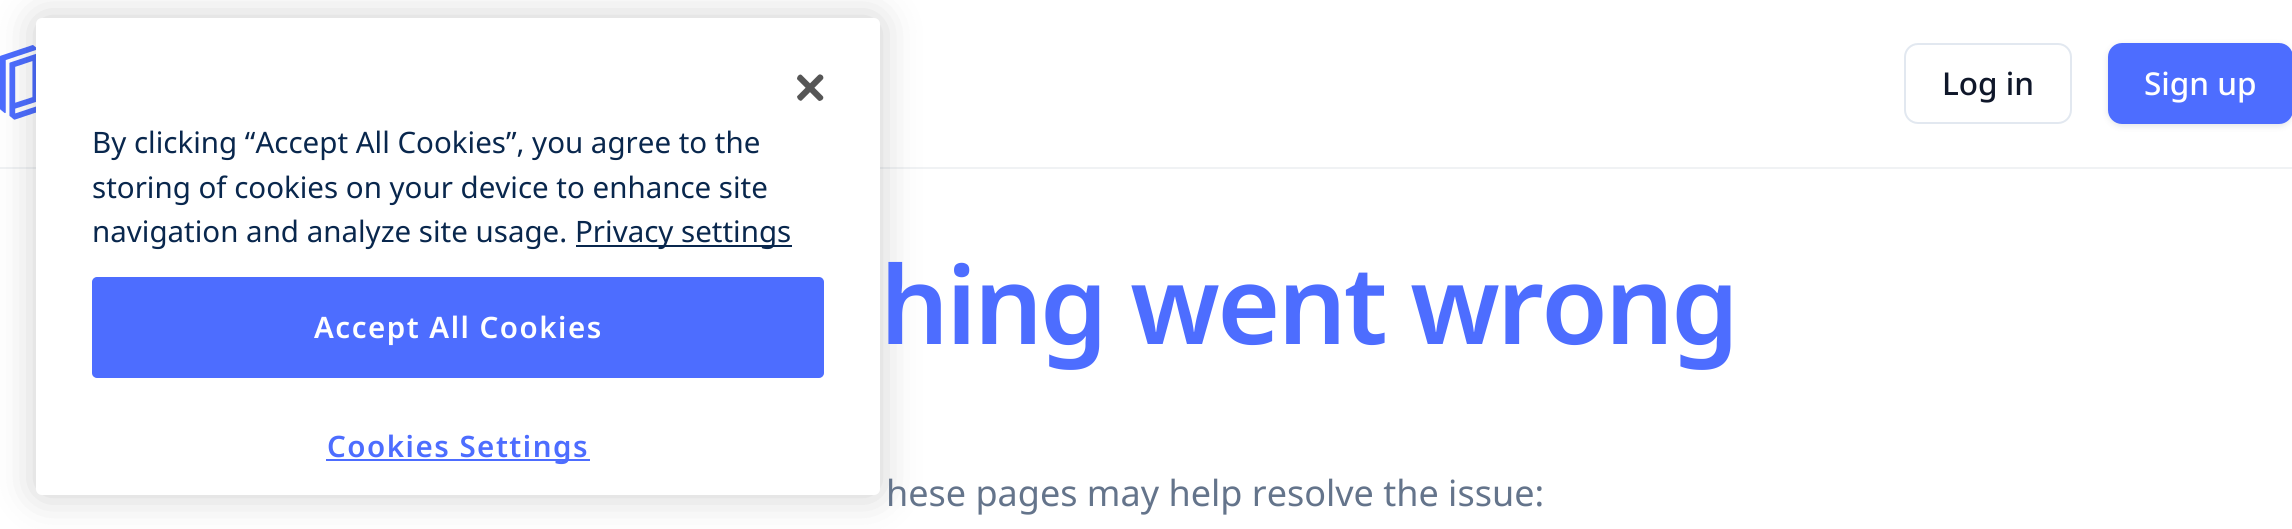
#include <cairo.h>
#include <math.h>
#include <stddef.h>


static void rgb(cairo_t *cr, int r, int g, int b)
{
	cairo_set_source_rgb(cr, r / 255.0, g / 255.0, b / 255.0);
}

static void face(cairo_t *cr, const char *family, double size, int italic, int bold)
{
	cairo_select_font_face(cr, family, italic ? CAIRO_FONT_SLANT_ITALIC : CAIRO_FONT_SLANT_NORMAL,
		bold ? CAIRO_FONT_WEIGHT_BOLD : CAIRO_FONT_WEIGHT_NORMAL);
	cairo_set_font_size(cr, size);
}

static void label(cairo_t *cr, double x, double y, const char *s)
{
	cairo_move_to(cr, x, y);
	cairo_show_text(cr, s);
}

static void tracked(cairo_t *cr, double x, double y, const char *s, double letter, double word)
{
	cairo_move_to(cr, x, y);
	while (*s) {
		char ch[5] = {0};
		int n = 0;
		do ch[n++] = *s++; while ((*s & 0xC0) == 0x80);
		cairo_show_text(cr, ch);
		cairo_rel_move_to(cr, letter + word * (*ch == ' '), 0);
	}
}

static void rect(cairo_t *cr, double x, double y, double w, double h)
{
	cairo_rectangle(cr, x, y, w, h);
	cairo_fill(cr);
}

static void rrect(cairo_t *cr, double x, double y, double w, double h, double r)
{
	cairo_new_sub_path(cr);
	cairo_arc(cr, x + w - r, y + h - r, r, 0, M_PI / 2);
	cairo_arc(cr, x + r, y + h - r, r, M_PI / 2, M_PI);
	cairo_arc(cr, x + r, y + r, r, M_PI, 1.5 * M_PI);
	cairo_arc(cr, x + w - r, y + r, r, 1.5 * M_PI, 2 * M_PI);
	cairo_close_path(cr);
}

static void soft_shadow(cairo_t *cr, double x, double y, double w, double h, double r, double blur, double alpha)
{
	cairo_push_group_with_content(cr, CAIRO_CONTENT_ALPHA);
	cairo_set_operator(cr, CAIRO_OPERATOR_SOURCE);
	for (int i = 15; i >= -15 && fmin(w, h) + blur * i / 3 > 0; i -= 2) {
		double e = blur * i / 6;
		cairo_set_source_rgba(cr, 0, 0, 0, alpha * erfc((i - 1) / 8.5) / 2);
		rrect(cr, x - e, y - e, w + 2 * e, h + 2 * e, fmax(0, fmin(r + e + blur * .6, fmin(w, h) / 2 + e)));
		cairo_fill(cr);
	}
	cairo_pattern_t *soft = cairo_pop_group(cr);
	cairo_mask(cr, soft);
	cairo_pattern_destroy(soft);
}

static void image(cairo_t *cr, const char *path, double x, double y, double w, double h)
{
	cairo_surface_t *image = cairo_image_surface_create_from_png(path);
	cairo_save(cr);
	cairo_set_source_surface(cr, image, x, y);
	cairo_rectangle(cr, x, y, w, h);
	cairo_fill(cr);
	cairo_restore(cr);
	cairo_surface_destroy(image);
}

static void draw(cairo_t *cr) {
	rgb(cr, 255, 255, 255);
	cairo_paint(cr);
	rgb(cr, 240, 242, 244);
	cairo_new_path(cr);
	cairo_move_to(cr, 0, 166);
	cairo_line_to(cr, 0, 169);
	cairo_line_to(cr, 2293, 169);
	cairo_line_to(cr, 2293, 2);
	cairo_line_to(cr, 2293, 166);
	cairo_close_path(cr);
	cairo_fill(cr);
	rgb(cr, 255, 255, 255);
	rect(cr, 0, 166, 2292, 1);
	image(cr, "image1.png", 0, 45, 36, 75);
	rgb(cr, 0, 0, 0);
	soft_shadow(cr, 36, 18, 844, 477, 6, 20, 0.2);
	rgb(cr, 255, 255, 255);
	rrect(cr, 36, 18, 844, 477, 6);
	cairo_fill(cr);
	image(cr, "image0.png", 797, 74, 27, 27);
	face(cr, "Noto Sans", 29.5, 0, 0);
	rgb(cr, 9, 39, 77);
	label(cr, 92, 153, "By clicking “Accept All Cookies”, you agree to the");
	label(cr, 92, 198, "storing of cookies on your device to enhance site");
	label(cr, 92, 242, "navigation and analyze site usage.");
	rect(cr, 576, 245, 216, 2);
	label(cr, 575, 242, "Privacy settings");
	rgb(cr, 77, 109, 255);
	rrect(cr, 93, 278, 730, 99, 4);
	cairo_fill_preserve(cr);
	cairo_stroke(cr);
	face(cr, "Noto Sans SemiBold", 29.5, 0, 0);
	rgb(cr, 255, 255, 255);
	tracked(cr, 314, 338, "Accept All Cookies", 1.5, 0);
	rgb(cr, 77, 109, 255);
	rect(cr, 326, 459, 264, 2);
	tracked(cr, 327, 457, "Cookies Settings", 1.5, 0);
	rrect(cr, 1905, 44, 166, 79, 13);
	rgb(cr, 226, 232, 240);
	cairo_stroke(cr);
	face(cr, "Noto Sans Medium", 31.5, 0, 0);
	rgb(cr, 15, 23, 42);
	label(cr, 1942, 95, "Log in");
	rgb(cr, 6, 27, 54);
	soft_shadow(cr, 2108, 45, 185, 81, 14, 3.5, 0.12);
	rgb(cr, 77, 109, 255);
	rrect(cr, 2108, 43, 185, 81, 14);
	cairo_fill(cr);
	rgb(cr, 255, 255, 255);
	label(cr, 2144, 95, "Sign up");
	face(cr, "Noto Sans SemiBold", 108, 0, 0);
	rgb(cr, 77, 109, 255);
	tracked(cr, 880, 344, "hing went wrong", -2.75, 0);
	face(cr, "Noto Sans", 36, 0, 0);
	rgb(cr, 100, 116, 139);
	label(cr, 886, 506, "hese pages may help resolve the issue:");
}

int main(void) {
	cairo_surface_t *surface = cairo_image_surface_create(CAIRO_FORMAT_RGB24, 2292, 529);
	cairo_t *cr = cairo_create(surface);
	cairo_font_options_t *options = cairo_font_options_create();
	cairo_font_options_set_hint_metrics(options, CAIRO_HINT_METRICS_OFF);
	cairo_font_options_set_hint_style(options, CAIRO_HINT_STYLE_NONE);
	cairo_set_font_options(cr, options);
	cairo_set_miter_limit(cr, 4);
	draw(cr);
	cairo_surface_write_to_png(surface, "render.png");
	cairo_font_options_destroy(options);
	cairo_destroy(cr);
	cairo_surface_destroy(surface);
	return 0;
}
